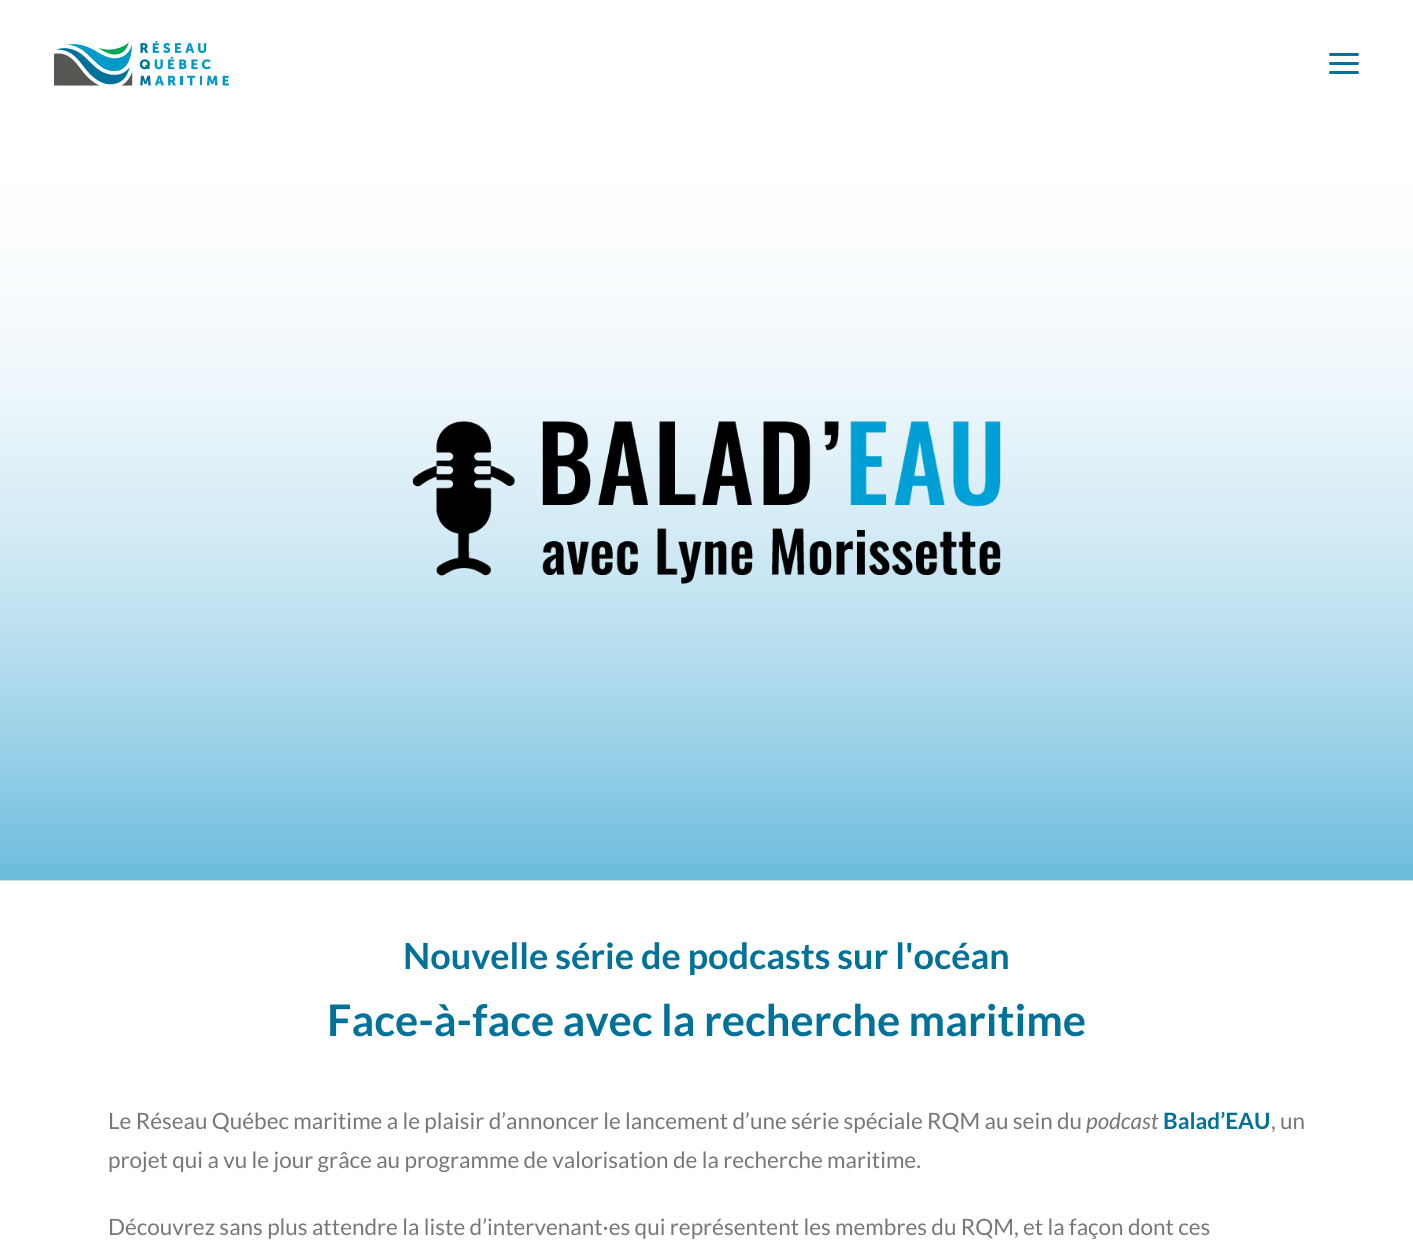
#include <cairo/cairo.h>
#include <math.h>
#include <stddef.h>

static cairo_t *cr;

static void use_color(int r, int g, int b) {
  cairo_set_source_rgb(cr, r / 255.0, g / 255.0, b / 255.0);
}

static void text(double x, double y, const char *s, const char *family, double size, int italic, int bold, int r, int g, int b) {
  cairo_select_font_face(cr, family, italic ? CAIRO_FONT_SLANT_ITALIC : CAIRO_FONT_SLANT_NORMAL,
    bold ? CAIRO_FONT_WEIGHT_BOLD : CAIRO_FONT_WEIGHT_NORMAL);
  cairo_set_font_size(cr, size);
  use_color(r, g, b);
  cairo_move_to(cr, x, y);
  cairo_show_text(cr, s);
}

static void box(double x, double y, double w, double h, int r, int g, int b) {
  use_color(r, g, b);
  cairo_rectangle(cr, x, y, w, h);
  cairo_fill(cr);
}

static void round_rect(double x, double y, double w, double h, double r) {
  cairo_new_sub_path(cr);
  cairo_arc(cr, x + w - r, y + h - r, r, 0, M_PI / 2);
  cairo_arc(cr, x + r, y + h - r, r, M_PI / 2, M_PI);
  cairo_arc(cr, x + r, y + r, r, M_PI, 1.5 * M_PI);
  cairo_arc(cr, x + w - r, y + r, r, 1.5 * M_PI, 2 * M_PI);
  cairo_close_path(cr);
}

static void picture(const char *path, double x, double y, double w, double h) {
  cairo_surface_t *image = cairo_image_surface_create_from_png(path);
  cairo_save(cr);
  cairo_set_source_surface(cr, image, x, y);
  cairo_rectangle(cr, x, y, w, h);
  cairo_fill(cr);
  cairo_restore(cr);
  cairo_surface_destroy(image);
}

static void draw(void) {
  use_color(234, 234, 234);
  cairo_paint(cr);
  box(0, 0, 1413, 126, 255, 255, 255);
  picture("img_01.png", 54, 41, 175, 45);
  use_color(0, 113, 153);
  round_rect(1329, 62, 30, 3, 1.5);
  cairo_fill(cr);
  round_rect(1329, 53, 30, 3, 1.5);
  cairo_fill(cr);
  round_rect(1329, 71, 30, 3, 1.5);
  cairo_fill(cr);
  picture("img_02.png", 0, 126, 1413, 755);
  box(0, 881, 1413, 379, 255, 255, 255);
  text(403, 969, "Nouvelle série de podcasts sur l'océan", "Lato", 36, 0, 1, 0, 113, 153);
  text(327, 1036, "Face-à-face avec la recherche maritime", "Lato", 43.5, 0, 1, 0, 113, 153);
  text(108, 1129, "Le Réseau Québec maritime a le plaisir d’annoncer le lancement d’une série spéciale RQM au sein du", "Lato", 22.5, 0, 0, 119, 119, 119);
  text(1086, 1129, "podcast", "Lato", 22.5, 1, 0, 119, 119, 119);
  text(1163, 1129, "Balad’EAU", "Lato", 22.5, 0, 1, 0, 113, 153);
  text(1271, 1129, ", un", "Lato", 22.5, 0, 0, 119, 119, 119);
  text(108, 1168, "projet qui a vu le jour grâce au programme de valorisation de la recherche maritime.", "Lato", 22.5, 0, 0, 119, 119, 119);
  text(108, 1235, "Découvrez sans plus attendre la liste d’intervenant·es qui représentent les membres du RQM, et la façon dont ces", "Lato", 22.5, 0, 0, 119, 119, 119);
}

int main(void) {
  cairo_surface_t *surface = cairo_image_surface_create(CAIRO_FORMAT_RGB24, 1413, 1260);
  cr = cairo_create(surface);
  cairo_font_options_t *options = cairo_font_options_create();
  cairo_font_options_set_hint_metrics(options, CAIRO_HINT_METRICS_OFF);
  cairo_font_options_set_hint_style(options, CAIRO_HINT_STYLE_NONE);
  cairo_set_font_options(cr, options);
  cairo_set_miter_limit(cr, 4);
  draw();
  cairo_surface_write_to_png(surface, "out.png");
  cairo_font_options_destroy(options);
  cairo_destroy(cr);
  cairo_surface_destroy(surface);
  return 0;
}
